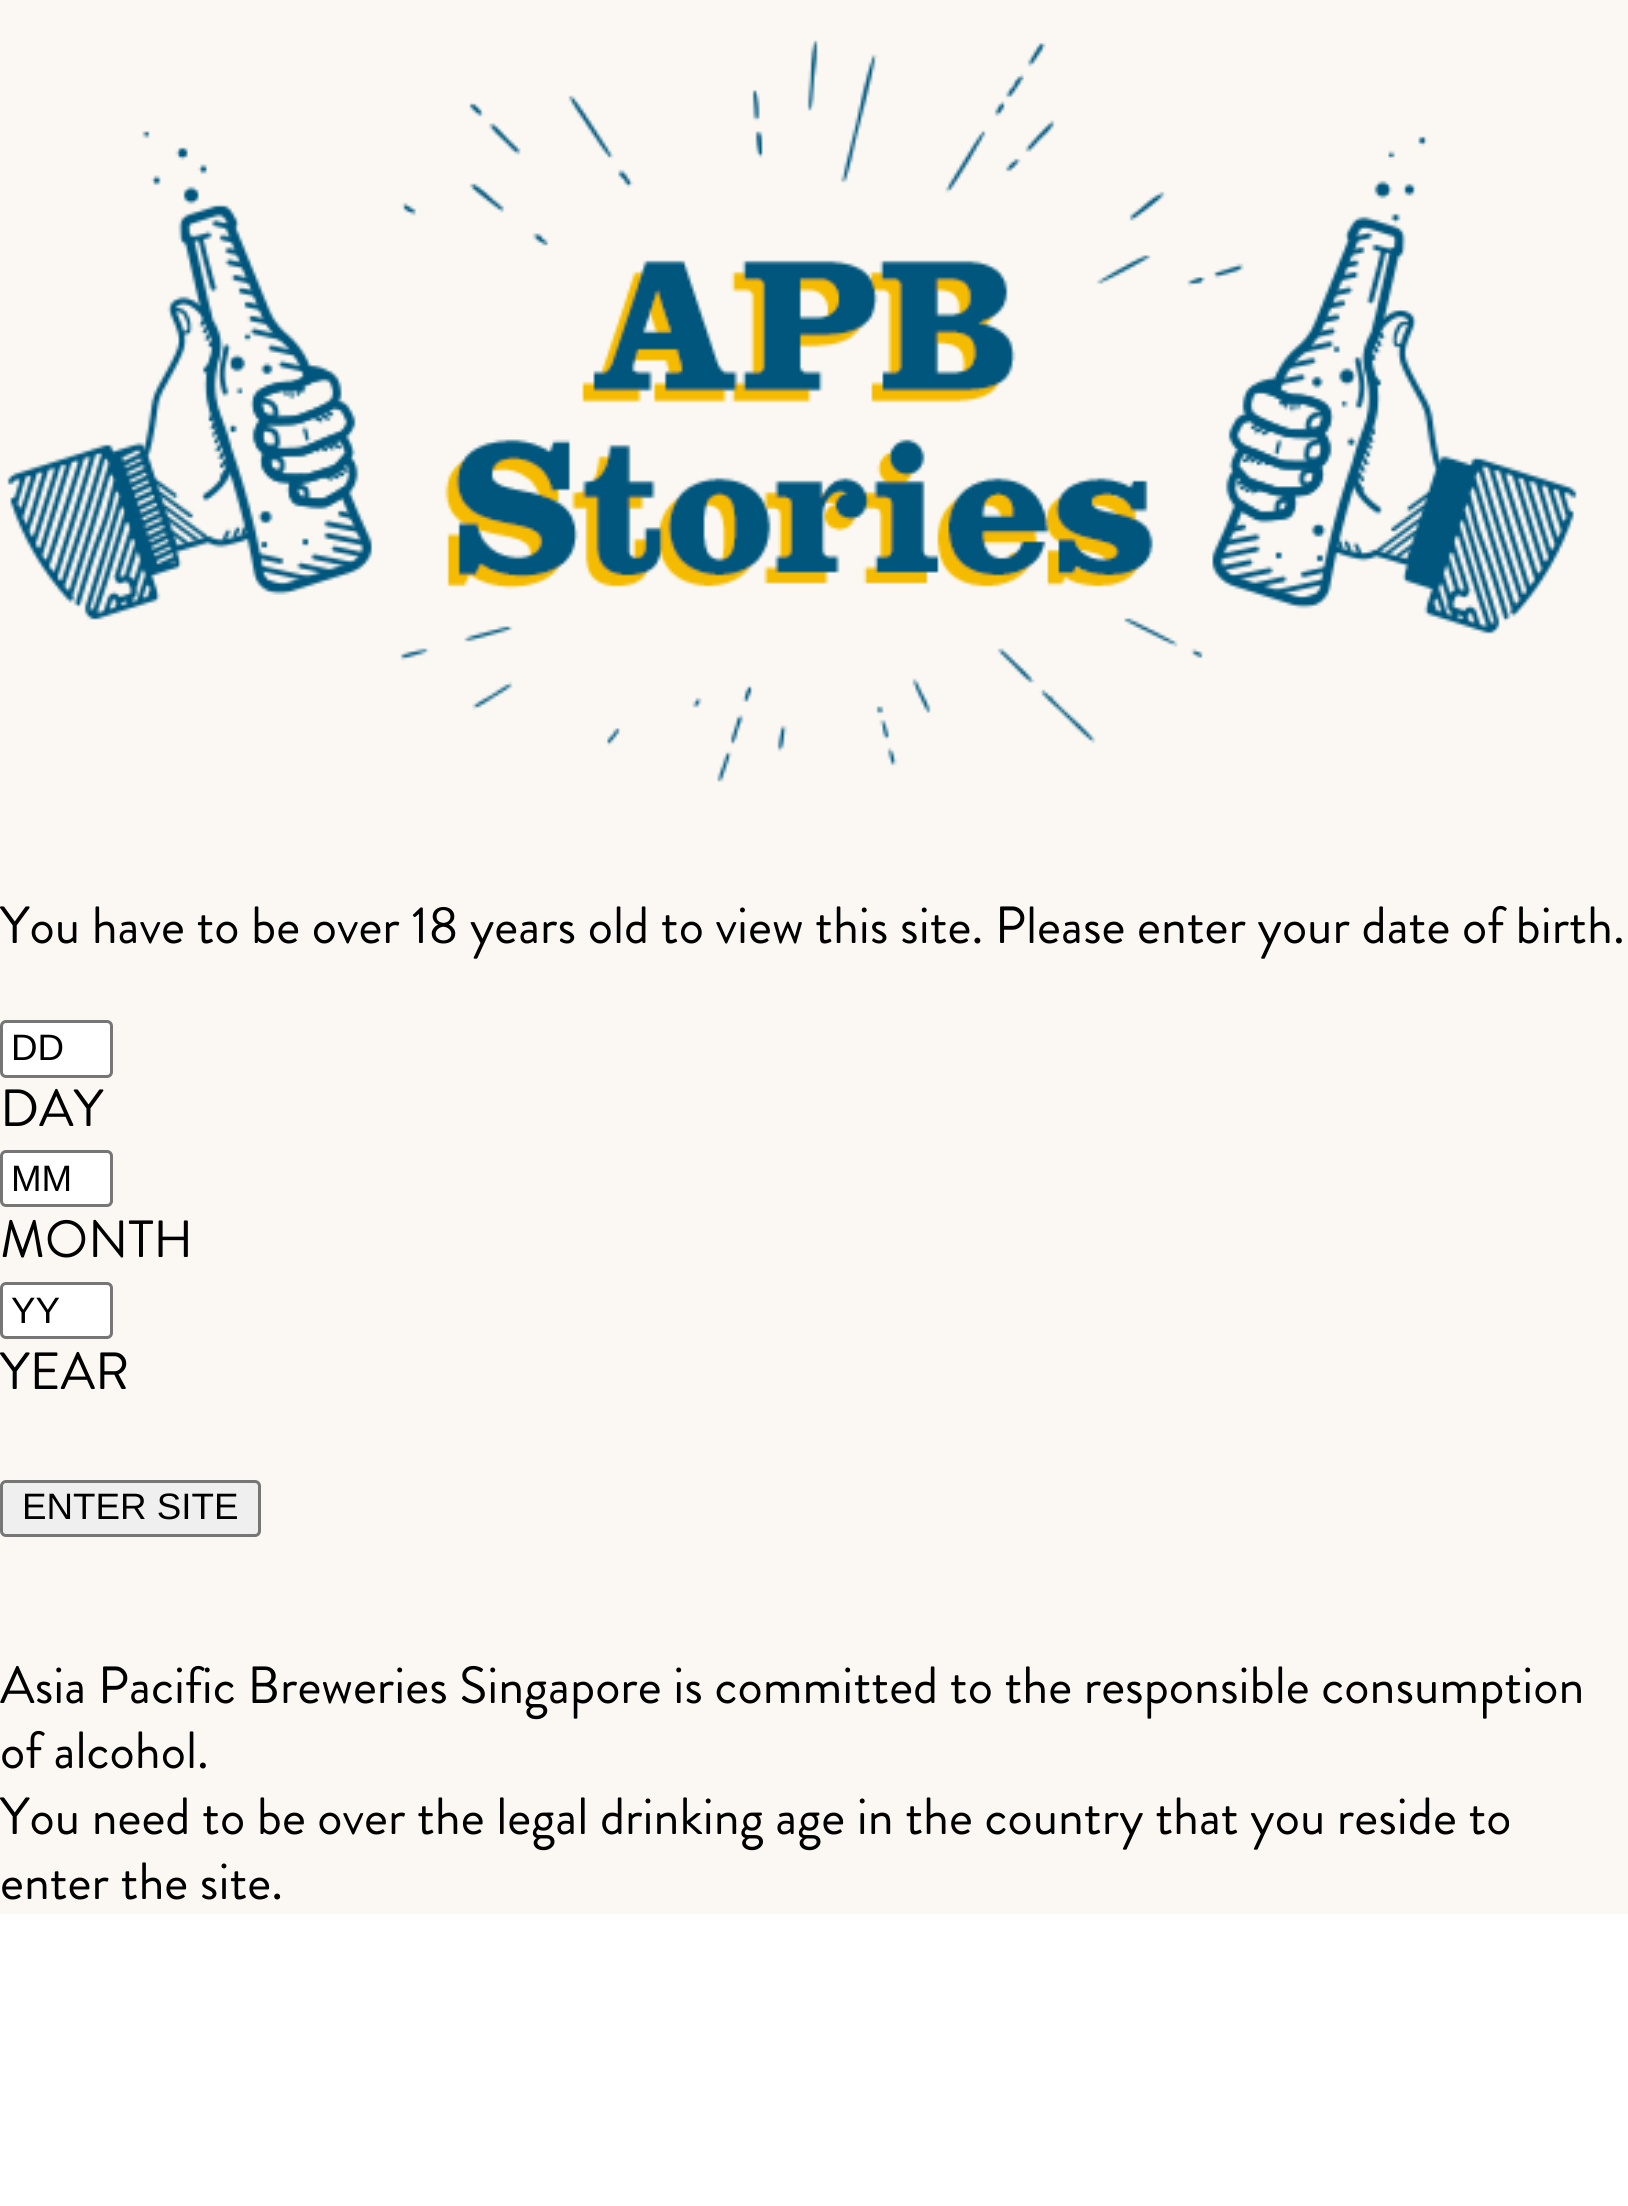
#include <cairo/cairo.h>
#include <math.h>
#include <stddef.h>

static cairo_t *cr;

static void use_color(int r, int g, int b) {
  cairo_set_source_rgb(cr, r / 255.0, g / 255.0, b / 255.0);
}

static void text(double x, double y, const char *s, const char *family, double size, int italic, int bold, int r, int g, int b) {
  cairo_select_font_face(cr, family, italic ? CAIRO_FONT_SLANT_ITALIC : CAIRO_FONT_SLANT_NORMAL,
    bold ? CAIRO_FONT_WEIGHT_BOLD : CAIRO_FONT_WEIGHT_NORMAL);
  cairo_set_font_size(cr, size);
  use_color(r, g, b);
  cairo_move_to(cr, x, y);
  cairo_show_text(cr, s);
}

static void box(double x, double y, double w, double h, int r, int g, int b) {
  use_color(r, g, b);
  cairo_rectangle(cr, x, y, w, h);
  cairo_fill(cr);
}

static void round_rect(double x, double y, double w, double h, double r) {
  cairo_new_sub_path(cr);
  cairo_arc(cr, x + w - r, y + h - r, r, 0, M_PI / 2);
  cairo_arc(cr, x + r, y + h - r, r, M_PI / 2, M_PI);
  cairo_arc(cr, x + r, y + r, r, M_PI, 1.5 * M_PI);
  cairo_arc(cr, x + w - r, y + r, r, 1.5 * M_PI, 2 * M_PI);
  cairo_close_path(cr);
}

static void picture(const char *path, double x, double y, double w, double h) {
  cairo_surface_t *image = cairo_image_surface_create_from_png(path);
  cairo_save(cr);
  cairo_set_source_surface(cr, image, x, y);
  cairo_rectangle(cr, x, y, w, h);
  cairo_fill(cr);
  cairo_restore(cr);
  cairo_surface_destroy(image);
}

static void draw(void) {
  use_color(255, 255, 255);
  cairo_paint(cr);
  box(0, 0, 1628, 1914, 251, 248, 243);
  picture("img_01.png", 7, 40, 1570, 742);
  use_color(255, 255, 255);
  round_rect(1.5, 1021.5, 110, 55, 4.5);
  cairo_fill_preserve(cr);
  use_color(118, 118, 118);
  cairo_set_line_width(cr, 3);
  cairo_stroke(cr);
  use_color(255, 255, 255);
  round_rect(1.5, 1151.5, 110, 54, 4.5);
  cairo_fill_preserve(cr);
  use_color(118, 118, 118);
  cairo_stroke(cr);
  use_color(255, 255, 255);
  round_rect(1.5, 1283.5, 110, 54, 4.5);
  cairo_fill_preserve(cr);
  use_color(118, 118, 118);
  cairo_stroke(cr);
  use_color(239, 239, 239);
  round_rect(1.5, 1481.5, 258, 54, 4.5);
  cairo_fill_preserve(cr);
  use_color(118, 118, 118);
  cairo_stroke(cr);
  text(0, 943, "You have to be over 18 years old to view this site. Please enter your date of birth.", "Brandon Grotesque", 52.25, 0, 0, 0, 0, 0);
  text(11, 1060, "DD", "Liberation Sans", 36.75, 0, 0, 0, 0, 0);
  text(0, 1126, "DAY", "Brandon Grotesque", 52.25, 0, 0, 0, 0, 0);
  text(11, 1191, "MM", "Liberation Sans", 36.75, 0, 0, 0, 0, 0);
  text(0, 1257, "MONTH", "Brandon Grotesque", 52.25, 0, 0, 0, 0, 0);
  text(11, 1323, "YY", "Liberation Sans", 36.75, 0, 0, 0, 0, 0);
  text(0, 1389, "YEAR", "Brandon Grotesque", 52.25, 0, 0, 0, 0, 0);
  text(22, 1519, "ENTER SITE", "Liberation Sans", 36.75, 0, 0, 0, 0, 0);
  text(0, 1703, "Asia Pacific Breweries Singapore is committed to the responsible consumption", "Brandon Grotesque", 52.25, 0, 0, 0, 0, 0);
  text(0, 1768, "of alcohol.", "Brandon Grotesque", 52.25, 0, 0, 0, 0, 0);
  text(0, 1834, "You need to be over the legal drinking age in the country that you reside to", "Brandon Grotesque", 52.25, 0, 0, 0, 0, 0);
  text(0, 1899, "enter the site.", "Brandon Grotesque", 52.25, 0, 0, 0, 0, 0);
}

int main(void) {
  cairo_surface_t *surface = cairo_image_surface_create(CAIRO_FORMAT_RGB24, 1628, 2206);
  cr = cairo_create(surface);
  cairo_font_options_t *options = cairo_font_options_create();
  cairo_font_options_set_hint_metrics(options, CAIRO_HINT_METRICS_OFF);
  cairo_font_options_set_hint_style(options, CAIRO_HINT_STYLE_NONE);
  cairo_set_font_options(cr, options);
  cairo_set_miter_limit(cr, 4);
  draw();
  cairo_surface_write_to_png(surface, "out.png");
  cairo_font_options_destroy(options);
  cairo_destroy(cr);
  cairo_surface_destroy(surface);
  return 0;
}
